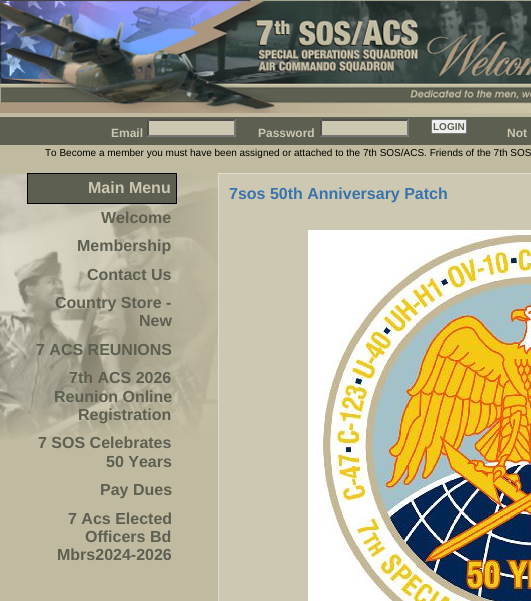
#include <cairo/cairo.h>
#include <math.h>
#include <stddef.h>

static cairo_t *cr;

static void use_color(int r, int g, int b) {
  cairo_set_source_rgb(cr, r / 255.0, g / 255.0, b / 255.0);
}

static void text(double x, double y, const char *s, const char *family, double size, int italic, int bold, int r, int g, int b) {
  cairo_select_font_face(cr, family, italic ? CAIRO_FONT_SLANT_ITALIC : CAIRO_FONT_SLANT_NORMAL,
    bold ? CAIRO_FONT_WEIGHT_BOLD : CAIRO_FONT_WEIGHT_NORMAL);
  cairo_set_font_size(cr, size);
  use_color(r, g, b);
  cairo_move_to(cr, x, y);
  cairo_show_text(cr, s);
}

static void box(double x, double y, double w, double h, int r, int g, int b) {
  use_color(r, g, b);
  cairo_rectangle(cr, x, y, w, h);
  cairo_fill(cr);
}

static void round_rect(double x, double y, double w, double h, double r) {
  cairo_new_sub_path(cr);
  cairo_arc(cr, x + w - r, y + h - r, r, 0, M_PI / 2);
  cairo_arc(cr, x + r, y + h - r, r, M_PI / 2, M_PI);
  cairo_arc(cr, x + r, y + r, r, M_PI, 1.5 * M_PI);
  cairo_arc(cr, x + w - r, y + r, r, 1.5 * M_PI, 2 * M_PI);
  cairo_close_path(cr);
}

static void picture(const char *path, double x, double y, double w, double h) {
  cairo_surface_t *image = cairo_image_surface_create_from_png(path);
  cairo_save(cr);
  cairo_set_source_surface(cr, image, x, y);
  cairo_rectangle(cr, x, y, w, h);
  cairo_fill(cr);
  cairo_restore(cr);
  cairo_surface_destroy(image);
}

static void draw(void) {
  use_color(192, 186, 160);
  cairo_paint(cr);
  picture("img_01.png", 0, 0, 531, 113);
  box(0, 117, 531, 28, 93, 95, 81);
  box(147, 119, 89, 18, 204, 199, 177);
  use_color(79, 79, 79);
  cairo_new_path(cr);
  cairo_move_to(cr, 147, 119);
  cairo_line_to(cr, 236, 119);
  cairo_line_to(cr, 234, 121);
  cairo_line_to(cr, 149, 121);
  cairo_close_path(cr);
  cairo_fill(cr);
  use_color(118, 118, 118);
  cairo_new_path(cr);
  cairo_move_to(cr, 236, 119);
  cairo_line_to(cr, 236, 137);
  cairo_line_to(cr, 234, 135);
  cairo_line_to(cr, 234, 121);
  cairo_close_path(cr);
  cairo_fill(cr);
  cairo_new_path(cr);
  cairo_move_to(cr, 236, 137);
  cairo_line_to(cr, 147, 137);
  cairo_line_to(cr, 149, 135);
  cairo_line_to(cr, 234, 135);
  cairo_close_path(cr);
  cairo_fill(cr);
  use_color(79, 79, 79);
  cairo_new_path(cr);
  cairo_move_to(cr, 147, 137);
  cairo_line_to(cr, 147, 119);
  cairo_line_to(cr, 149, 121);
  cairo_line_to(cr, 149, 135);
  cairo_close_path(cr);
  cairo_fill(cr);
  box(320, 119, 89, 18, 204, 199, 177);
  use_color(79, 79, 79);
  cairo_new_path(cr);
  cairo_move_to(cr, 320, 119);
  cairo_line_to(cr, 409, 119);
  cairo_line_to(cr, 407, 121);
  cairo_line_to(cr, 322, 121);
  cairo_close_path(cr);
  cairo_fill(cr);
  use_color(118, 118, 118);
  cairo_new_path(cr);
  cairo_move_to(cr, 409, 119);
  cairo_line_to(cr, 409, 137);
  cairo_line_to(cr, 407, 135);
  cairo_line_to(cr, 407, 121);
  cairo_close_path(cr);
  cairo_fill(cr);
  cairo_new_path(cr);
  cairo_move_to(cr, 409, 137);
  cairo_line_to(cr, 320, 137);
  cairo_line_to(cr, 322, 135);
  cairo_line_to(cr, 407, 135);
  cairo_close_path(cr);
  cairo_fill(cr);
  use_color(79, 79, 79);
  cairo_new_path(cr);
  cairo_move_to(cr, 320, 137);
  cairo_line_to(cr, 320, 119);
  cairo_line_to(cr, 322, 121);
  cairo_line_to(cr, 322, 135);
  cairo_close_path(cr);
  cairo_fill(cr);
  use_color(239, 239, 239);
  round_rect(431.5, 119.5, 35, 14, 1.5);
  cairo_fill_preserve(cr);
  use_color(118, 118, 118);
  cairo_set_line_width(cr, 1);
  cairo_stroke(cr);
  picture("img_02.png", 0, 173, 218, 266);
  use_color(93, 95, 81);
  cairo_rectangle(cr, 27.5, 173.5, 149, 30);
  cairo_fill_preserve(cr);
  use_color(0, 0, 0);
  cairo_stroke(cr);
  use_color(205, 200, 178);
  cairo_rectangle(cr, 218.5, 173.5, 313, 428);
  cairo_fill_preserve(cr);
  use_color(223, 220, 206);
  cairo_stroke(cr);
  picture("img_03.png", 308, 230, 223, 371);
  text(433, 130, "LOGIN", "Liberation Sans", 10, 0, 1, 93, 95, 81);
  text(111, 137, "Email", "Liberation Sans", 12, 0, 1, 204, 199, 177);
  text(258, 137, "Password", "Liberation Sans", 12, 0, 1, 204, 199, 177);
  text(507, 137, "Not", "Liberation Sans", 12, 0, 1, 204, 199, 177);
  text(45, 156, "To Become a member you must have been assigned or attached to the 7th SOS/ACS. Friends of the 7th SOS", "Liberation Sans", 10, 0, 0, 0, 0, 0);
  text(88, 193, "Main Menu", "Liberation Sans", 16, 0, 1, 204, 199, 177);
  text(101, 223, "Welcome", "Liberation Sans", 16, 0, 1, 93, 95, 81);
  text(77, 251, "Membership", "Liberation Sans", 16, 0, 1, 93, 95, 81);
  text(87, 280, "Contact Us", "Liberation Sans", 16, 0, 1, 93, 95, 81);
  text(55, 308, "Country Store -", "Liberation Sans", 16, 0, 1, 93, 95, 81);
  text(139, 326, "New", "Liberation Sans", 16, 0, 1, 93, 95, 81);
  text(36, 355, "7 ACS REUNIONS", "Liberation Sans", 16, 0, 1, 93, 95, 81);
  text(69, 383, "7th ACS 2026", "Liberation Sans", 16, 0, 1, 93, 95, 81);
  text(54, 402, "Reunion Online", "Liberation Sans", 16, 0, 1, 93, 95, 81);
  text(78, 420, "Registration", "Liberation Sans", 16, 0, 1, 93, 95, 81);
  text(38, 448, "7 SOS Celebrates", "Liberation Sans", 16, 0, 1, 93, 95, 81);
  text(106, 467, "50 Years", "Liberation Sans", 16, 0, 1, 93, 95, 81);
  text(100, 495, "Pay Dues", "Liberation Sans", 16, 0, 1, 93, 95, 81);
  text(68, 524, "7 Acs Elected", "Liberation Sans", 16, 0, 1, 93, 95, 81);
  text(85, 542, "Officers Bd", "Liberation Sans", 16, 0, 1, 93, 95, 81);
  text(57, 560, "Mbrs2024-2026", "Liberation Sans", 16, 0, 1, 93, 95, 81);
  text(229, 199, "7sos 50th Anniversary Patch", "Liberation Sans", 16, 0, 1, 57, 115, 172);
}

int main(void) {
  cairo_surface_t *surface = cairo_image_surface_create(CAIRO_FORMAT_RGB24, 531, 601);
  cr = cairo_create(surface);
  cairo_font_options_t *options = cairo_font_options_create();
  cairo_font_options_set_hint_metrics(options, CAIRO_HINT_METRICS_OFF);
  cairo_font_options_set_hint_style(options, CAIRO_HINT_STYLE_NONE);
  cairo_set_font_options(cr, options);
  cairo_set_miter_limit(cr, 4);
  draw();
  cairo_surface_write_to_png(surface, "out.png");
  cairo_font_options_destroy(options);
  cairo_destroy(cr);
  cairo_surface_destroy(surface);
  return 0;
}
